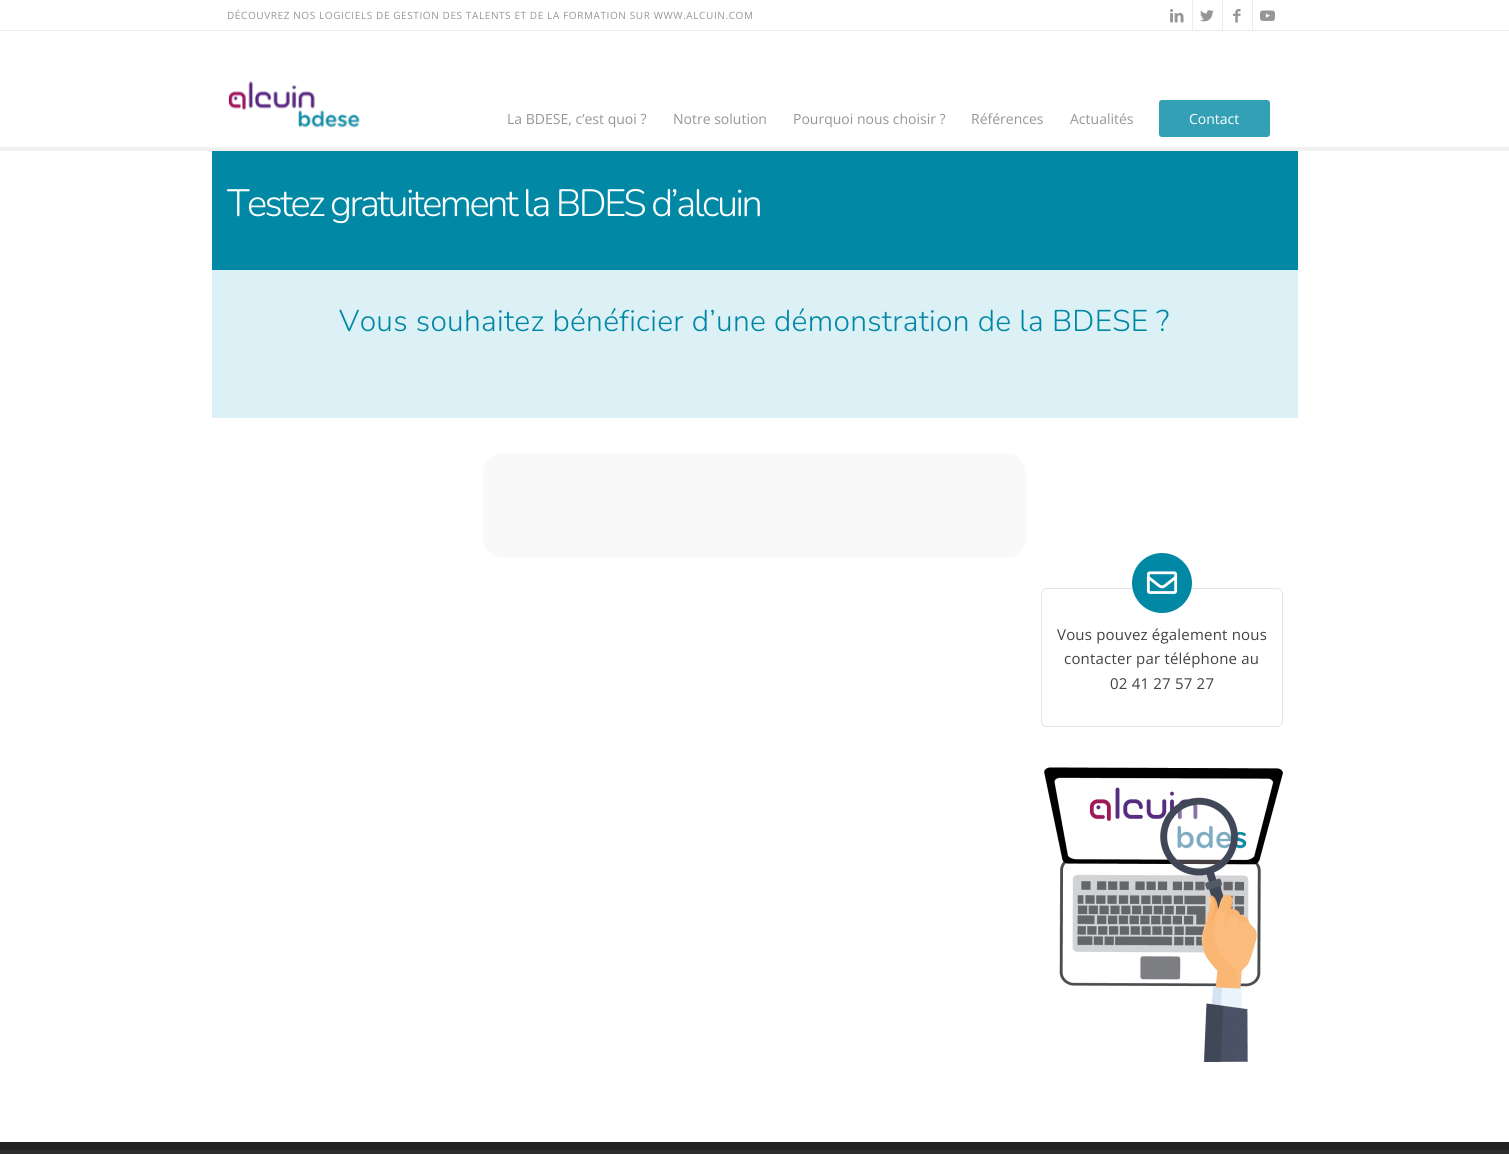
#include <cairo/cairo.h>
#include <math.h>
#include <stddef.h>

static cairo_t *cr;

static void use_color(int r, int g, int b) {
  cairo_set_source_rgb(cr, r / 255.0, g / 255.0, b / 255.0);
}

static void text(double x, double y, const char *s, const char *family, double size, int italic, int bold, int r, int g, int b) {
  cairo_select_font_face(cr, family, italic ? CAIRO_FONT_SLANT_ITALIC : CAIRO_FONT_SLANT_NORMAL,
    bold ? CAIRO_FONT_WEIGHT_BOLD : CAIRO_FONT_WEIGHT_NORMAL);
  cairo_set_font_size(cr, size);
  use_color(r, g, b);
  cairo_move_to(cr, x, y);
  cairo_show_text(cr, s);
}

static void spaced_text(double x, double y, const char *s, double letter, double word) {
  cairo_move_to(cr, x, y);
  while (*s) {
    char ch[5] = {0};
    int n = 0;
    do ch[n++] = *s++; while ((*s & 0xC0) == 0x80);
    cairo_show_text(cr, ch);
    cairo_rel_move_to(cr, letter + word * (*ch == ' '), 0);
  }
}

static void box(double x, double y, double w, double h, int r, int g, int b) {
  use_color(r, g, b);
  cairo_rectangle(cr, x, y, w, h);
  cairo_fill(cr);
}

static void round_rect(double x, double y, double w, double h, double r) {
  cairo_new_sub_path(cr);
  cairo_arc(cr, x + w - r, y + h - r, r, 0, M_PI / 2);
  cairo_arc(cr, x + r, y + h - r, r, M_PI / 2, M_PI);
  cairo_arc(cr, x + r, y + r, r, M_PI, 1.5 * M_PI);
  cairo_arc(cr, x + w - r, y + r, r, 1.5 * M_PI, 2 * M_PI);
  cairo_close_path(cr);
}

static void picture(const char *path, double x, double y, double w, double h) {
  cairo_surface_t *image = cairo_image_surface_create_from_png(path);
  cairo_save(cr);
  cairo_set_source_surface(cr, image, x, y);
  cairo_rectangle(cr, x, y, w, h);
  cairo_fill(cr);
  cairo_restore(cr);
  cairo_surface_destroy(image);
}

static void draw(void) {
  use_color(255, 255, 255);
  cairo_paint(cr);
  box(0, 30, 1509, 1, 235, 235, 235);
  box(1192, 0, 1, 30, 235, 235, 235);
  picture("img_01.png", 1170, 9, 14, 14);
  box(1222, 0, 1, 30, 235, 235, 235);
  picture("img_02.png", 1200, 10, 14, 12);
  box(1252, 0, 1, 30, 235, 235, 235);
  picture("img_03.png", 1233, 9, 8, 14);
  picture("img_04.png", 1260, 10, 15, 11);
  box(0, 147, 1509, 4, 240, 240, 240);
  picture("img_05.png", 228, 81, 132, 47);
  use_color(51, 160, 182);
  round_rect(1160, 101, 109, 35, 2);
  cairo_fill_preserve(cr);
  cairo_stroke(cr);
  box(212, 151, 1086, 119, 0, 136, 165);
  box(212, 270, 1086, 148, 219, 241, 245);
  use_color(249, 249, 249);
  round_rect(483, 453, 543, 105, 20);
  cairo_fill(cr);
  round_rect(1041.5, 588.5, 241, 138, 5.5);
  use_color(229, 229, 229);
  cairo_set_line_width(cr, 1);
  cairo_stroke(cr);
  use_color(0, 136, 165);
  cairo_arc(cr, 1162, 583, 30, 0, 2 * M_PI);
  cairo_fill(cr);
  picture("img_06.png", 1146, 571, 32, 23);
  picture("img_07.png", 1044, 767, 239, 295);
  box(0, 1150, 1509, 4, 45, 45, 45);
  box(0, 1142, 1509, 8, 34, 34, 34);
  cairo_select_font_face(cr, "Open Sans", CAIRO_FONT_SLANT_NORMAL, CAIRO_FONT_WEIGHT_NORMAL);
  cairo_set_font_size(cr, 10);
  use_color(150, 150, 150);
  spaced_text(227, 19, "DÉCOUVREZ NOS LOGICIELS DE GESTION DES TALENTS ET DE LA FORMATION SUR WWW.ALCUIN.COM", 0.6, 0);
  text(507, 124, "La BDESE, c’est quoi ?", "Open Sans", 14, 0, 0, 150, 150, 150);
  text(673, 124, "Notre solution", "Open Sans", 14, 0, 0, 150, 150, 150);
  text(793, 124, "Pourquoi nous choisir ?", "Open Sans", 14, 0, 0, 150, 150, 150);
  text(971, 124, "Références", "Open Sans", 14, 0, 0, 150, 150, 150);
  text(1070, 124, "Actualités", "Open Sans", 14, 0, 0, 150, 150, 150);
  text(1189, 124, "Contact", "Open Sans", 14, 0, 0, 255, 255, 255);
  cairo_select_font_face(cr, "Nunito Light", CAIRO_FONT_SLANT_NORMAL, CAIRO_FONT_WEIGHT_NORMAL);
  cairo_set_font_size(cr, 38);
  spaced_text(227, 216, "Testez gratuitement la BDES d’alcuin", -2.5, 0);
  cairo_set_font_size(cr, 30);
  use_color(0, 135, 165);
  spaced_text(339, 331, "Vous souhaitez bénéficier d’une démonstration de la BDESE ?", 0.3, 0);
  cairo_select_font_face(cr, "Open Sans", CAIRO_FONT_SLANT_NORMAL, CAIRO_FONT_WEIGHT_NORMAL);
  cairo_set_font_size(cr, 15);
  use_color(66, 66, 66);
  spaced_text(1057, 640, "Vous pouvez également nous", 0.2, 0);
  spaced_text(1064, 664, "contacter par téléphone au", 0.2, 0);
  spaced_text(1110, 689, "02 41 27 57 27", 0.2, 0);
}

int main(void) {
  cairo_surface_t *surface = cairo_image_surface_create(CAIRO_FORMAT_RGB24, 1509, 1154);
  cr = cairo_create(surface);
  cairo_font_options_t *options = cairo_font_options_create();
  cairo_font_options_set_hint_metrics(options, CAIRO_HINT_METRICS_OFF);
  cairo_font_options_set_hint_style(options, CAIRO_HINT_STYLE_NONE);
  cairo_set_font_options(cr, options);
  cairo_set_miter_limit(cr, 4);
  draw();
  cairo_surface_write_to_png(surface, "out.png");
  cairo_font_options_destroy(options);
  cairo_destroy(cr);
  cairo_surface_destroy(surface);
  return 0;
}
